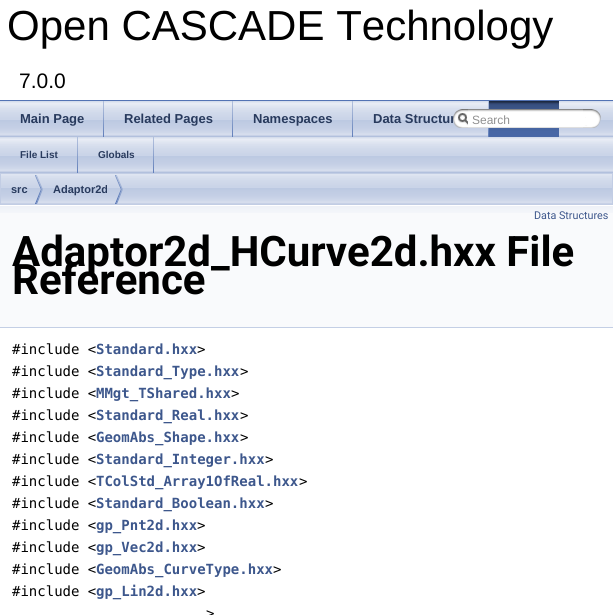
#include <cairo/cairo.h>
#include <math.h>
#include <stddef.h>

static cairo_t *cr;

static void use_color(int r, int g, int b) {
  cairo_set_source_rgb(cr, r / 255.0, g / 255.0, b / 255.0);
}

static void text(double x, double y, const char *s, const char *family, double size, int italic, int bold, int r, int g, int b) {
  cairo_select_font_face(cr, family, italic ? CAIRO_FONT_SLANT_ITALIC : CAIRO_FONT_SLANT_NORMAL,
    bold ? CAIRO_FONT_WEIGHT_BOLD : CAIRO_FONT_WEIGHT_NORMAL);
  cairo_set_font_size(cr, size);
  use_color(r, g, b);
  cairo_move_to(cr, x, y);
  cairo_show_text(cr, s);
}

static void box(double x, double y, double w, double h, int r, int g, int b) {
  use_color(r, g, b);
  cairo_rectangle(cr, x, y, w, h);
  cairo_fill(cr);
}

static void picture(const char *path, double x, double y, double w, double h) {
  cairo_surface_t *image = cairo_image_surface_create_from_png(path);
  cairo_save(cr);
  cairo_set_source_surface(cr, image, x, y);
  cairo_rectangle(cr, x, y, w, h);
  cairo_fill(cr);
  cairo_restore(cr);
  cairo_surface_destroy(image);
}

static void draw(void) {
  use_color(255, 255, 255);
  cairo_paint(cr);
  box(0, 100, 613, 1, 83, 115, 180);
  picture("img_01.png", 0, 101, 613, 36);
  picture("img_02.png", 103, 101, 1, 36);
  picture("img_02.png", 232, 101, 1, 36);
  picture("img_02.png", 352, 101, 1, 36);
  picture("img_02.png", 488, 101, 1, 36);
  picture("img_03.png", 489, 101, 70, 36);
  picture("img_06.png", 468, 109, 115, 19);
  picture("img_07.png", 583, 109, 18, 19);
  picture("img_01.png", 0, 137, 613, 36);
  picture("img_02.png", 77, 137, 1, 36);
  picture("img_02.png", 153, 137, 1, 36);
  picture("img_08.png", 1, 174, 611, 30);
  cairo_rectangle(cr, 0.5, 173.5, 612, 31);
  use_color(194, 205, 228);
  cairo_set_line_width(cr, 1);
  cairo_stroke(cr);
  picture("img_09.png", 35, 175, 8, 29);
  picture("img_09.png", 115, 175, 8, 29);
  box(0, 213, 613, 114, 249, 250, 252);
  picture("img_10.png", 0, 205, 613, 8);
  box(0, 327, 613, 1, 196, 207, 229);
  text(7, 40, "Open CASCADE Technology", "Liberation Sans", 42, 0, 0, 0, 0, 0);
  text(19, 88, "7.0.0", "Liberation Sans", 21, 0, 0, 0, 0, 0);
  text(20, 123, "Main Page", "Liberation Sans", 13, 0, 1, 40, 58, 93);
  text(124, 123, "Related Pages", "Liberation Sans", 13, 0, 1, 40, 58, 93);
  text(253, 123, "Namespaces", "Liberation Sans", 13, 0, 1, 40, 58, 93);
  text(373, 123, "Data Structur", "Liberation Sans", 13, 0, 1, 40, 58, 93);
  picture("img_04.png", 453, 109, 15, 19);
  picture("img_05.png", 458, 113, 10, 12);
  text(472, 124, "Search", "Liberation Sans", 12, 0, 0, 144, 144, 144);
  text(20, 158, "File List", "Liberation Sans", 10, 0, 1, 40, 58, 93);
  text(98, 158, "Globals", "Liberation Sans", 10, 0, 1, 40, 58, 93);
  text(11, 193, "src", "Liberation Sans", 11, 0, 1, 40, 58, 93);
  text(53, 193, "Adaptor2d", "Liberation Sans", 11, 0, 1, 40, 58, 93);
  text(534, 219, "Data Structures", "Roboto", 10.75, 0, 0, 61, 87, 140);
  text(12, 266, "Adaptor2d_HCurve2d.hxx File", "Roboto", 42, 0, 1, 0, 0, 0);
  text(12, 294, "Reference", "Roboto", 42, 0, 1, 0, 0, 0);
  text(12, 354, "#include <", "DejaVu Sans Mono", 14, 0, 0, 0, 0, 0);
  text(96, 354, "Standard.hxx", "DejaVu Sans Mono", 14, 0, 1, 61, 87, 140);
  text(197, 354, ">", "DejaVu Sans Mono", 14, 0, 0, 0, 0, 0);
  text(12, 376, "#include <", "DejaVu Sans Mono", 14, 0, 0, 0, 0, 0);
  text(96, 376, "Standard_Type.hxx", "DejaVu Sans Mono", 14, 0, 1, 61, 87, 140);
  text(240, 376, ">", "DejaVu Sans Mono", 14, 0, 0, 0, 0, 0);
  text(12, 398, "#include <", "DejaVu Sans Mono", 14, 0, 0, 0, 0, 0);
  text(96, 398, "MMgt_TShared.hxx", "DejaVu Sans Mono", 14, 0, 1, 61, 87, 140);
  text(231, 398, ">", "DejaVu Sans Mono", 14, 0, 0, 0, 0, 0);
  text(12, 420, "#include <", "DejaVu Sans Mono", 14, 0, 0, 0, 0, 0);
  text(96, 420, "Standard_Real.hxx", "DejaVu Sans Mono", 14, 0, 1, 61, 87, 140);
  text(240, 420, ">", "DejaVu Sans Mono", 14, 0, 0, 0, 0, 0);
  text(12, 442, "#include <", "DejaVu Sans Mono", 14, 0, 0, 0, 0, 0);
  text(96, 442, "GeomAbs_Shape.hxx", "DejaVu Sans Mono", 14, 0, 1, 61, 87, 140);
  text(240, 442, ">", "DejaVu Sans Mono", 14, 0, 0, 0, 0, 0);
  text(12, 464, "#include <", "DejaVu Sans Mono", 14, 0, 0, 0, 0, 0);
  text(96, 464, "Standard_Integer.hxx", "DejaVu Sans Mono", 14, 0, 1, 61, 87, 140);
  text(265, 464, ">", "DejaVu Sans Mono", 14, 0, 0, 0, 0, 0);
  text(12, 486, "#include <", "DejaVu Sans Mono", 14, 0, 0, 0, 0, 0);
  text(96, 486, "TColStd_Array1OfReal.hxx", "DejaVu Sans Mono", 14, 0, 1, 61, 87, 140);
  text(299, 486, ">", "DejaVu Sans Mono", 14, 0, 0, 0, 0, 0);
  text(12, 508, "#include <", "DejaVu Sans Mono", 14, 0, 0, 0, 0, 0);
  text(96, 508, "Standard_Boolean.hxx", "DejaVu Sans Mono", 14, 0, 1, 61, 87, 140);
  text(265, 508, ">", "DejaVu Sans Mono", 14, 0, 0, 0, 0, 0);
  text(12, 530, "#include <", "DejaVu Sans Mono", 14, 0, 0, 0, 0, 0);
  text(96, 530, "gp_Pnt2d.hxx", "DejaVu Sans Mono", 14, 0, 1, 61, 87, 140);
  text(197, 530, ">", "DejaVu Sans Mono", 14, 0, 0, 0, 0, 0);
  text(12, 552, "#include <", "DejaVu Sans Mono", 14, 0, 0, 0, 0, 0);
  text(96, 552, "gp_Vec2d.hxx", "DejaVu Sans Mono", 14, 0, 1, 61, 87, 140);
  text(197, 552, ">", "DejaVu Sans Mono", 14, 0, 0, 0, 0, 0);
  text(12, 574, "#include <", "DejaVu Sans Mono", 14, 0, 0, 0, 0, 0);
  text(96, 574, "GeomAbs_CurveType.hxx", "DejaVu Sans Mono", 14, 0, 1, 61, 87, 140);
  text(273, 574, ">", "DejaVu Sans Mono", 14, 0, 0, 0, 0, 0);
  text(12, 596, "#include <", "DejaVu Sans Mono", 14, 0, 0, 0, 0, 0);
  text(96, 596, "gp_Lin2d.hxx", "DejaVu Sans Mono", 14, 0, 1, 61, 87, 140);
  text(197, 596, ">", "DejaVu Sans Mono", 14, 0, 0, 0, 0, 0);
  text(206, 618, ">", "DejaVu Sans Mono", 14, 0, 0, 0, 0, 0);
}

int main(void) {
  cairo_surface_t *surface = cairo_image_surface_create(CAIRO_FORMAT_RGB24, 613, 615);
  cr = cairo_create(surface);
  cairo_font_options_t *options = cairo_font_options_create();
  cairo_font_options_set_hint_metrics(options, CAIRO_HINT_METRICS_OFF);
  cairo_font_options_set_hint_style(options, CAIRO_HINT_STYLE_NONE);
  cairo_set_font_options(cr, options);
  cairo_set_miter_limit(cr, 4);
  draw();
  cairo_surface_write_to_png(surface, "out.png");
  cairo_font_options_destroy(options);
  cairo_destroy(cr);
  cairo_surface_destroy(surface);
  return 0;
}
